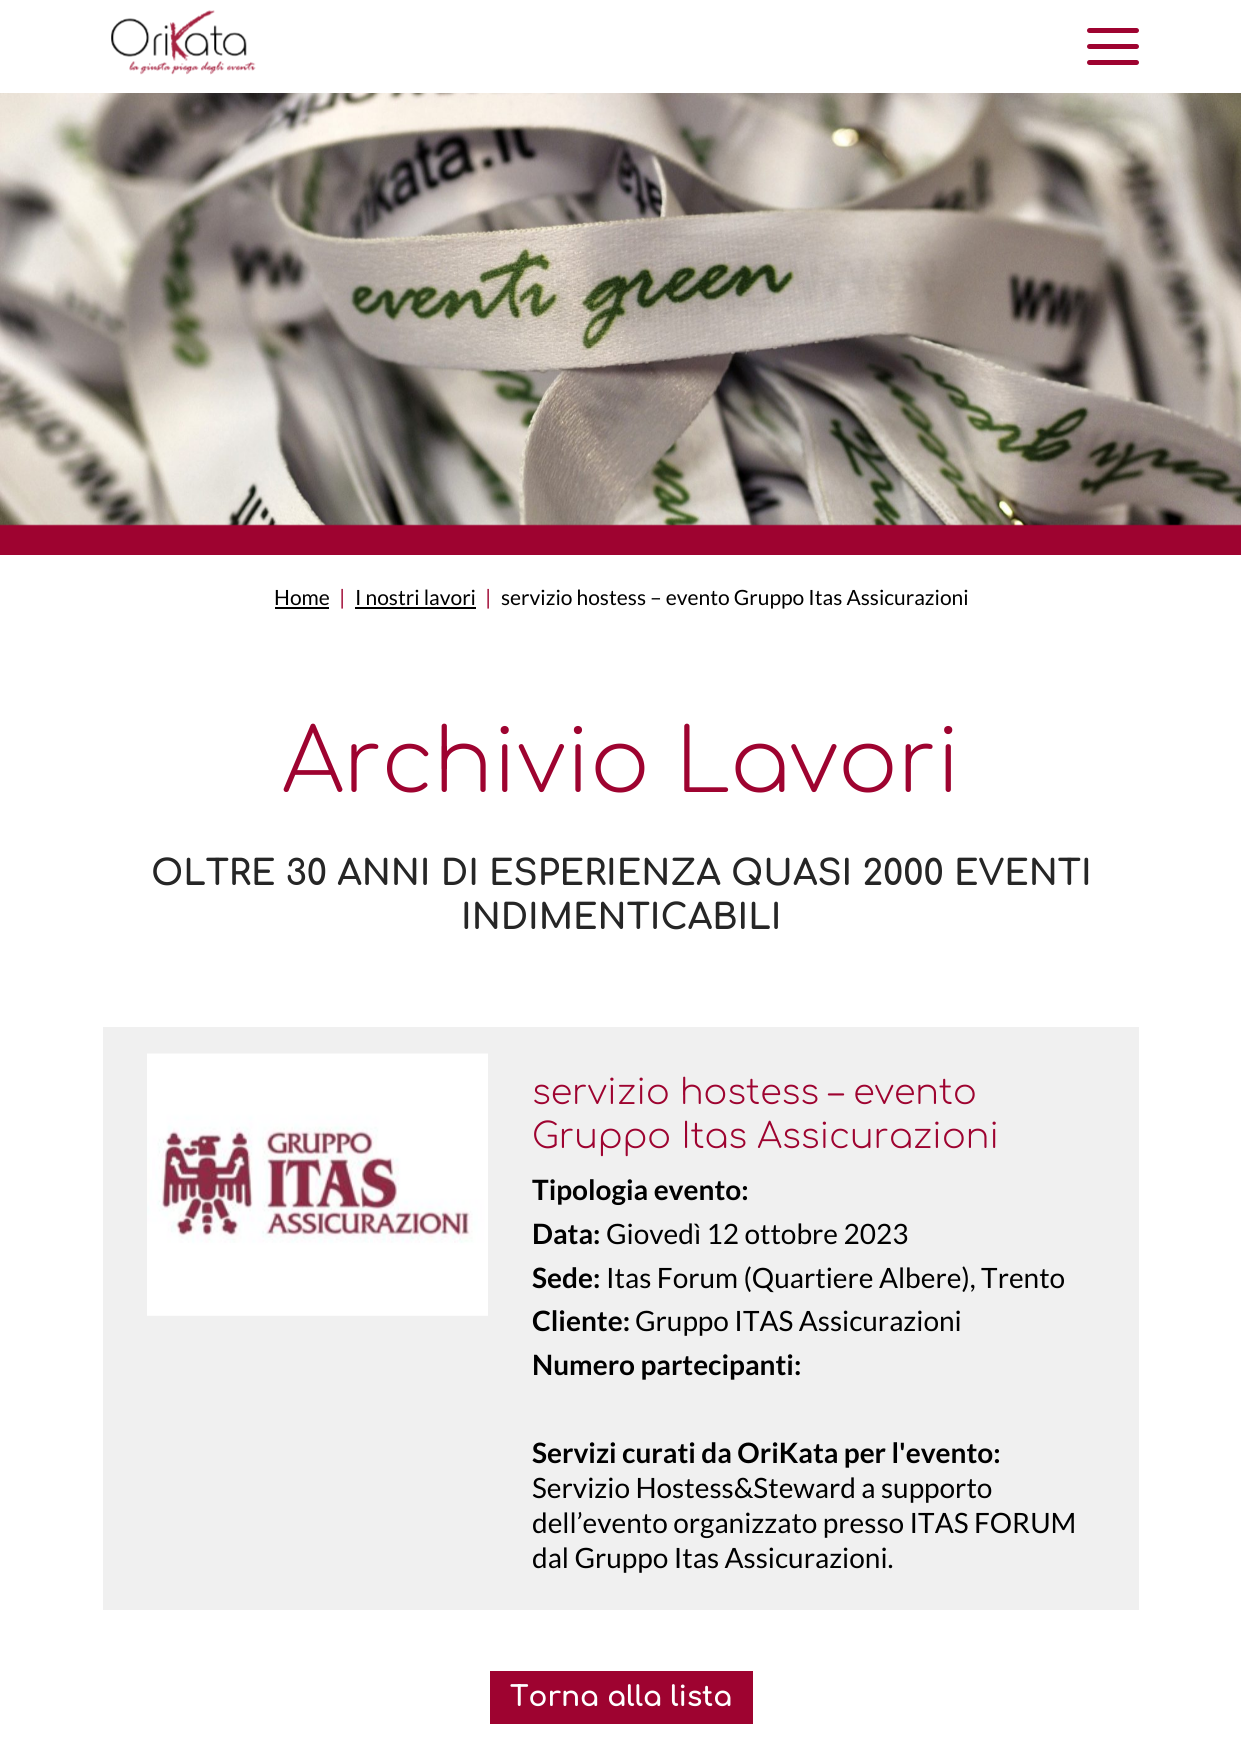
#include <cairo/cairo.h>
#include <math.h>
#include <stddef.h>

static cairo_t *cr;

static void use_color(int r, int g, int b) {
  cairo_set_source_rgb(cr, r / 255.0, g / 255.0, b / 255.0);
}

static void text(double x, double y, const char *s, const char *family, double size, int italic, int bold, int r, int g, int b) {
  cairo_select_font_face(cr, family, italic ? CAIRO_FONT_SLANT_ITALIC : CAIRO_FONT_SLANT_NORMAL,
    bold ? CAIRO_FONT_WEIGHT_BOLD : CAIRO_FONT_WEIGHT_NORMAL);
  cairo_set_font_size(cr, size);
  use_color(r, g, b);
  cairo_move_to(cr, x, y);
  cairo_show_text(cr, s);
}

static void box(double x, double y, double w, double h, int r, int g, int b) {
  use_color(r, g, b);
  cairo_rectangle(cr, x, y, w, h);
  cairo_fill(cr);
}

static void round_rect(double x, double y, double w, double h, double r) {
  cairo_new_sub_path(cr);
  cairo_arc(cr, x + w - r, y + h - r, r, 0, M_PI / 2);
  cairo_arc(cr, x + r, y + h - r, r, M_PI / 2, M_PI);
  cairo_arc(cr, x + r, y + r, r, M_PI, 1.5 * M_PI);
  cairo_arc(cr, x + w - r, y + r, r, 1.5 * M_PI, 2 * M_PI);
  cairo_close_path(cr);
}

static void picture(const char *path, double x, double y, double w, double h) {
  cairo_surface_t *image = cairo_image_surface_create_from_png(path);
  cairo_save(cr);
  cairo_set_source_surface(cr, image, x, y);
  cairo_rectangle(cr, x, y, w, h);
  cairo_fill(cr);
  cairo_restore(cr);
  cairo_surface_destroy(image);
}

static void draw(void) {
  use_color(255, 255, 255);
  cairo_paint(cr);
  picture("img_01.png", 111, 10, 145, 65);
  use_color(158, 3, 48);
  round_rect(1087, 28, 52, 5, 2.5);
  cairo_fill(cr);
  round_rect(1087, 44, 52, 5, 2.5);
  cairo_fill(cr);
  round_rect(1087, 60, 52, 5, 2.5);
  cairo_fill(cr);
  box(0, 524, 1241, 31, 158, 3, 48);
  picture("img_02.png", 0, 93, 1241, 433);
  box(275, 607, 54, 2, 0, 0, 0);
  box(355, 607, 121, 2, 0, 0, 0);
  box(103, 1027, 1036, 583, 240, 240, 240);
  picture("img_03.png", 147, 1053, 341, 263);
  box(490, 1671, 263, 53, 158, 3, 48);
  text(274, 605, "Home", "Lato", 21, 0, 0, 0, 0, 0);
  text(339, 605, "|", "Lato", 21, 0, 0, 158, 3, 48);
  text(355, 605, "I nostri lavori", "Lato", 21, 0, 0, 0, 0, 0);
  text(485, 605, "|", "Lato", 21, 0, 0, 158, 3, 48);
  text(501, 605, "servizio hostess – evento Gruppo Itas Assicurazioni", "Lato", 21, 0, 0, 0, 0, 0);
  text(282, 792, "Archivio Lavori", "Comfortaa Light", 87.5, 0, 0, 158, 3, 48);
  text(151, 885, "OLTRE 30 ANNI DI ESPERIENZA QUASI 2000 EVENTI", "Comfortaa", 35, 0, 1, 38, 38, 38);
  text(461, 929, "INDIMENTICABILI", "Comfortaa", 35, 0, 1, 38, 38, 38);
  text(532, 1104, "servizio hostess – evento", "Comfortaa Light", 35, 0, 0, 158, 3, 48);
  text(532, 1148, "Gruppo Itas Assicurazioni", "Comfortaa Light", 35, 0, 0, 158, 3, 48);
  text(532, 1200, "Tipologia evento:", "Lato", 28, 0, 1, 0, 0, 0);
  text(532, 1244, "Data:", "Lato", 28, 0, 1, 0, 0, 0);
  text(606, 1244, "Giovedì 12 ottobre 2023", "Lato", 28, 0, 0, 0, 0, 0);
  text(532, 1288, "Sede:", "Lato", 28, 0, 1, 0, 0, 0);
  text(606, 1288, "Itas Forum (Quartiere Albere), Trento", "Lato", 28, 0, 0, 0, 0, 0);
  text(532, 1331, "Cliente:", "Lato", 28, 0, 1, 0, 0, 0);
  text(635, 1331, "Gruppo ITAS Assicurazioni", "Lato", 28, 0, 0, 0, 0, 0);
  text(532, 1375, "Numero partecipanti:", "Lato", 28, 0, 1, 0, 0, 0);
  text(532, 1463, "Servizi curati da OriKata per l'evento:", "Lato", 28, 0, 1, 0, 0, 0);
  text(532, 1498, "Servizio Hostess&Steward a supporto", "Lato", 28, 0, 0, 0, 0, 0);
  text(532, 1533, "dell’evento organizzato presso ITAS FORUM", "Lato", 28, 0, 0, 0, 0, 0);
  text(532, 1568, "dal Gruppo Itas Assicurazioni.", "Lato", 28, 0, 0, 0, 0, 0);
  text(510, 1706, "Torna alla lista", "Comfortaa", 28, 0, 1, 255, 255, 255);
}

int main(void) {
  cairo_surface_t *surface = cairo_image_surface_create(CAIRO_FORMAT_RGB24, 1241, 1744);
  cr = cairo_create(surface);
  cairo_font_options_t *options = cairo_font_options_create();
  cairo_font_options_set_hint_metrics(options, CAIRO_HINT_METRICS_OFF);
  cairo_font_options_set_hint_style(options, CAIRO_HINT_STYLE_NONE);
  cairo_set_font_options(cr, options);
  cairo_set_miter_limit(cr, 4);
  draw();
  cairo_surface_write_to_png(surface, "out.png");
  cairo_font_options_destroy(options);
  cairo_destroy(cr);
  cairo_surface_destroy(surface);
  return 0;
}
